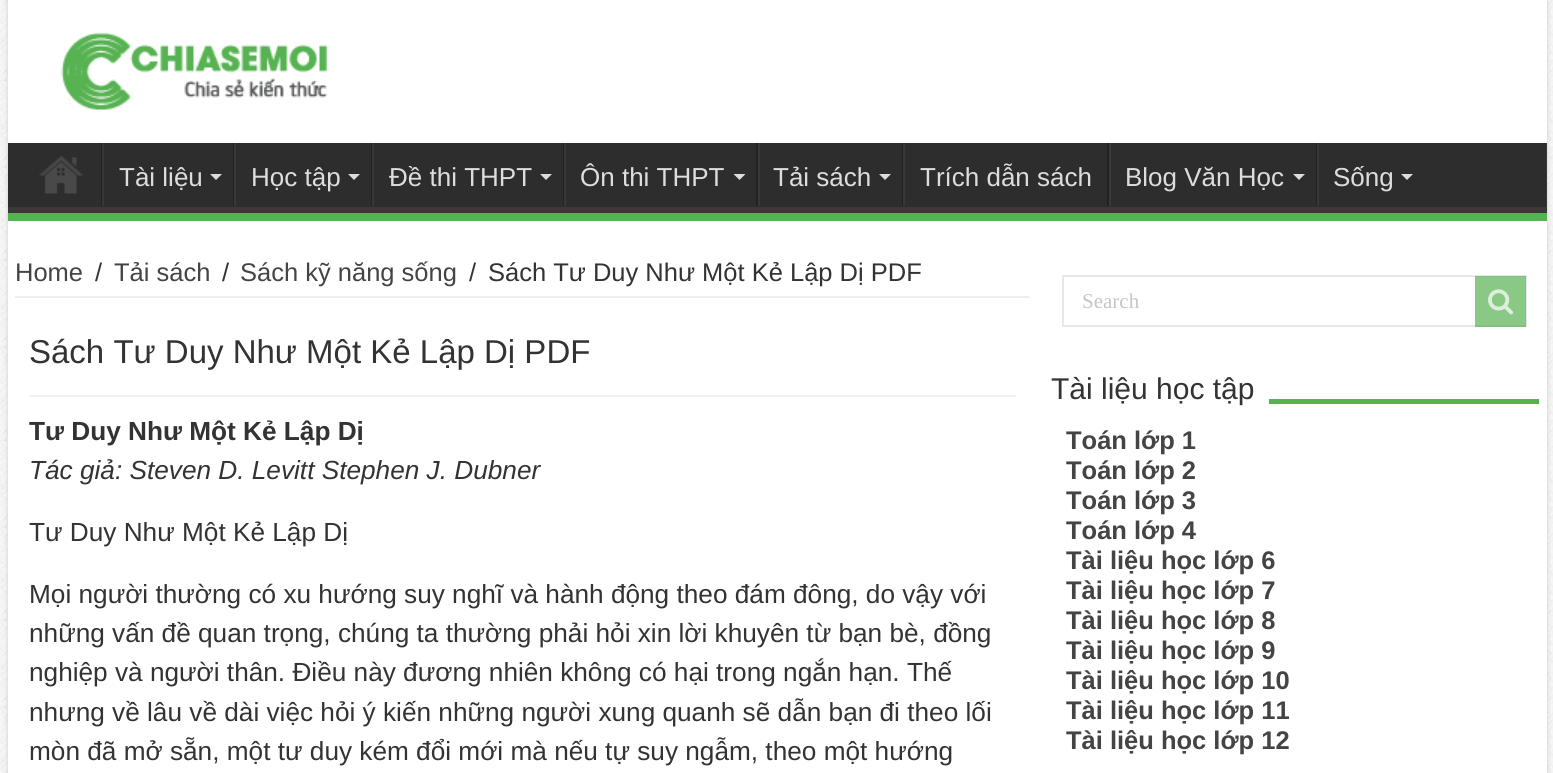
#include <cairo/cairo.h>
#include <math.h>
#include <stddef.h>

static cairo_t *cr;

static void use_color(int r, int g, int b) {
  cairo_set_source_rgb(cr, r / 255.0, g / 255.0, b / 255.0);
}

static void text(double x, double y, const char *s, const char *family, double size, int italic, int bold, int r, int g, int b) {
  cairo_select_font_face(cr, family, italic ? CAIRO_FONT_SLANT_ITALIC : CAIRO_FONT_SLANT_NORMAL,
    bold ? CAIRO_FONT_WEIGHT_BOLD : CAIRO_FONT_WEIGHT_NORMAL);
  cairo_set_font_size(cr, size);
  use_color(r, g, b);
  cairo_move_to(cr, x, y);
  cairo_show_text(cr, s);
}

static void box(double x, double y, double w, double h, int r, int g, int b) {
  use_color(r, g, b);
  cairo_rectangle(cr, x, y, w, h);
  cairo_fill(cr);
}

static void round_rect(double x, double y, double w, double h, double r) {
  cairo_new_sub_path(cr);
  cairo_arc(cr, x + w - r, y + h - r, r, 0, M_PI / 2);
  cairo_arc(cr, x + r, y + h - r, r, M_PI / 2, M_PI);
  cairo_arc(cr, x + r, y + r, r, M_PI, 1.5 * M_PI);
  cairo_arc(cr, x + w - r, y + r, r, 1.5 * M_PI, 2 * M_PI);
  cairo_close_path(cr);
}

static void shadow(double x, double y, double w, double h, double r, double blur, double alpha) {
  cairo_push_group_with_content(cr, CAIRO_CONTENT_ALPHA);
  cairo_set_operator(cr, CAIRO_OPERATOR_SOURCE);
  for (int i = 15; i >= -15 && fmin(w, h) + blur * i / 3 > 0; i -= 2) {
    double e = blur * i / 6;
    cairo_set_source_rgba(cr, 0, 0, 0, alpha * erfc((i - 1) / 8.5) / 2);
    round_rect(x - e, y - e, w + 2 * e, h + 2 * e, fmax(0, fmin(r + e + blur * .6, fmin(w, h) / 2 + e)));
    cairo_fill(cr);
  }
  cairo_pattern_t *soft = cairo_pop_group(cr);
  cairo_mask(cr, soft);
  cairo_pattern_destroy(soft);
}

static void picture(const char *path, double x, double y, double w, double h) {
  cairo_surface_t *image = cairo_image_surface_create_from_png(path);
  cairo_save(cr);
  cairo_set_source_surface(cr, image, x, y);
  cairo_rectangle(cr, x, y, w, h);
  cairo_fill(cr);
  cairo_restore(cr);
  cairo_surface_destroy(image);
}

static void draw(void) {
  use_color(255, 255, 255);
  cairo_paint(cr);
  picture("img_01.png", 0, 0, 1553, 773);
  use_color(202, 202, 202);
  shadow(8, 0, 1539, 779, 0, 2, 1);
  box(8, 0, 1539, 773, 255, 255, 255);
  picture("img_02.png", 61, 32, 267, 78);
  box(8, 143, 1538, 64, 45, 45, 45);
  cairo_save(cr);
  cairo_rectangle(cr, 8, 143, 1539, 70);
  cairo_clip(cr);
  use_color(57, 57, 57);
  cairo_set_fill_rule(cr, CAIRO_FILL_RULE_EVEN_ODD);
  cairo_new_path(cr);
  cairo_move_to(cr, -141, -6);
  cairo_line_to(cr, 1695, -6);
  cairo_line_to(cr, 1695, 362);
  cairo_line_to(cr, -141, 362);
  cairo_close_path(cr);
  cairo_move_to(cr, 6, 134);
  cairo_line_to(cr, 1545, 134);
  cairo_curve_to(cr, 1546, 134, 1546, 134, 1546, 135);
  cairo_line_to(cr, 1546, 206);
  cairo_curve_to(cr, 1546, 206, 1546, 207, 1545, 207);
  cairo_line_to(cr, 6, 207);
  cairo_curve_to(cr, 5, 207, 4, 206, 4, 206);
  cairo_line_to(cr, 4, 135);
  cairo_curve_to(cr, 4, 134, 5, 134, 6, 134);
  cairo_close_path(cr);
  cairo_fill(cr);
  cairo_restore(cr);
  box(8, 213, 1539, 8, 87, 178, 82);
  picture("img_03.png", 39, 156, 44, 38);
  box(101, 143, 1, 63, 34, 34, 34);
  box(102, 143, 2, 63, 56, 56, 56);
  use_color(221, 221, 221);
  cairo_new_path(cr);
  cairo_move_to(cr, 210, 174);
  cairo_line_to(cr, 222, 174);
  cairo_line_to(cr, 216, 180);
  cairo_close_path(cr);
  cairo_fill(cr);
  box(233, 143, 1, 63, 34, 34, 34);
  box(234, 143, 2, 63, 56, 56, 56);
  use_color(221, 221, 221);
  cairo_new_path(cr);
  cairo_move_to(cr, 348, 174);
  cairo_line_to(cr, 360, 174);
  cairo_line_to(cr, 354, 180);
  cairo_close_path(cr);
  cairo_fill(cr);
  box(371, 143, 1, 63, 34, 34, 34);
  box(372, 143, 2, 63, 56, 56, 56);
  use_color(221, 221, 221);
  cairo_new_path(cr);
  cairo_move_to(cr, 540, 174);
  cairo_line_to(cr, 552, 174);
  cairo_line_to(cr, 546, 180);
  cairo_close_path(cr);
  cairo_fill(cr);
  box(563, 143, 1, 63, 34, 34, 34);
  box(564, 143, 2, 63, 56, 56, 56);
  use_color(221, 221, 221);
  cairo_new_path(cr);
  cairo_move_to(cr, 733.5, 174);
  cairo_line_to(cr, 745.5, 174);
  cairo_line_to(cr, 739.5, 180);
  cairo_close_path(cr);
  cairo_fill(cr);
  box(756, 143, 2, 63, 34, 34, 34);
  box(758, 143, 2, 63, 56, 56, 56);
  use_color(221, 221, 221);
  cairo_new_path(cr);
  cairo_move_to(cr, 879, 174);
  cairo_line_to(cr, 891, 174);
  cairo_line_to(cr, 885, 180);
  cairo_close_path(cr);
  cairo_fill(cr);
  box(902, 143, 1, 63, 34, 34, 34);
  box(903, 143, 2, 63, 56, 56, 56);
  box(1107, 143, 2, 63, 34, 34, 34);
  box(1109, 143, 2, 63, 56, 56, 56);
  use_color(221, 221, 221);
  cairo_new_path(cr);
  cairo_move_to(cr, 1293, 174);
  cairo_line_to(cr, 1305, 174);
  cairo_line_to(cr, 1299, 180);
  cairo_close_path(cr);
  cairo_fill(cr);
  box(1316, 143, 1, 63, 34, 34, 34);
  box(1317, 143, 2, 63, 56, 56, 56);
  use_color(221, 221, 221);
  cairo_new_path(cr);
  cairo_move_to(cr, 1401, 174);
  cairo_line_to(cr, 1413, 174);
  cairo_line_to(cr, 1407, 180);
  cairo_close_path(cr);
  cairo_fill(cr);
  box(15, 296, 1014, 2, 238, 238, 238);
  box(29, 395, 987, 2, 242, 242, 242);
  cairo_rectangle(cr, 1063, 276, 463, 50);
  use_color(232, 232, 232);
  cairo_stroke(cr);
  cairo_set_source_rgba(cr, 0.341, 0.698, 0.322, 0.7);
  cairo_rectangle(cr, 1475, 276, 51, 51);
  cairo_fill(cr);
  picture("img_04.png", 1488, 289, 25, 26);
  box(1269, 399, 270, 5, 87, 178, 82);
  text(119, 186, "Tài liệu", "Liberation Sans", 26, 0, 0, 221, 221, 221);
  text(251, 186, "Học tập", "Liberation Sans", 26, 0, 0, 221, 221, 221);
  text(389, 186, "Đề thi THPT", "Liberation Sans", 26, 0, 0, 221, 221, 221);
  text(580, 186, "Ôn thi THPT", "Liberation Sans", 26, 0, 0, 221, 221, 221);
  text(773, 186, "Tải sách", "Liberation Sans", 26, 0, 0, 221, 221, 221);
  text(920, 186, "Trích dẫn sách", "Liberation Sans", 26, 0, 0, 221, 221, 221);
  text(1125, 186, "Blog Văn Học", "Liberation Sans", 26, 0, 0, 221, 221, 221);
  text(1333, 186, "Sống", "Liberation Sans", 26, 0, 0, 221, 221, 221);
  text(15, 281, "Home", "Liberation Sans", 25.5, 0, 0, 68, 68, 68);
  text(95, 281, "/", "Liberation Sans", 25.5, 0, 0, 51, 51, 51);
  text(114, 281, "Tải sách", "Liberation Sans", 25.5, 0, 0, 68, 68, 68);
  text(222, 281, "/", "Liberation Sans", 25.5, 0, 0, 51, 51, 51);
  text(240, 281, "Sách kỹ năng sống", "Liberation Sans", 25.5, 0, 0, 68, 68, 68);
  text(469, 281, "/", "Liberation Sans", 25.5, 0, 0, 51, 51, 51);
  text(488, 281, "Sách Tư Duy Như Một Kẻ Lập Dị PDF", "Liberation Sans", 25.5, 0, 0, 51, 51, 51);
  text(29, 363, "Sách Tư Duy Như Một Kẻ Lập Dị PDF", "Liberation Sans", 33, 0, 0, 51, 51, 51);
  text(29, 440, "Tư Duy Như Một Kẻ Lập Dị", "Liberation Sans", 26.2, 0, 1, 51, 51, 51);
  text(29, 479, "Tác giả: Steven D. Levitt Stephen J. Dubner", "Liberation Sans", 26.2, 1, 0, 51, 51, 51);
  text(29, 541, "Tư Duy Như Một Kẻ Lập Dị", "Liberation Sans", 26.2, 0, 0, 51, 51, 51);
  text(29, 603, "Mọi người thường có xu hướng suy nghĩ và hành động theo đám đông, do vậy với", "Liberation Sans", 26.2, 0, 0, 51, 51, 51);
  text(29, 642, "những vấn đề quan trọng, chúng ta thường phải hỏi xin lời khuyên từ bạn bè, đồng", "Liberation Sans", 26.2, 0, 0, 51, 51, 51);
  text(29, 681, "nghiệp và người thân. Điều này đương nhiên không có hại trong ngắn hạn. Thế", "Liberation Sans", 26.2, 0, 0, 51, 51, 51);
  text(29, 721, "nhưng về lâu về dài việc hỏi ý kiến những người xung quanh sẽ dẫn bạn đi theo lối", "Liberation Sans", 26.2, 0, 0, 51, 51, 51);
  text(29, 760, "mòn đã mở sẵn, một tư duy kém đổi mới mà nếu tự suy ngẫm, theo một hướng", "Liberation Sans", 26.2, 0, 0, 51, 51, 51);
  text(1082, 308, "Search", "Liberation Serif", 21, 0, 0, 197, 197, 197);
  text(1051, 399, "Tài liệu học tập", "Liberation Sans", 30, 0, 0, 51, 51, 51);
  text(1066, 449, "Toán lớp 1", "Liberation Sans", 25.5, 0, 1, 68, 68, 68);
  text(1066, 479, "Toán lớp 2", "Liberation Sans", 25.5, 0, 1, 68, 68, 68);
  text(1066, 509, "Toán lớp 3", "Liberation Sans", 25.5, 0, 1, 68, 68, 68);
  text(1066, 539, "Toán lớp 4", "Liberation Sans", 25.5, 0, 1, 68, 68, 68);
  text(1066, 569, "Tài liệu học lớp 6", "Liberation Sans", 25.5, 0, 1, 68, 68, 68);
  text(1066, 599, "Tài liệu học lớp 7", "Liberation Sans", 25.5, 0, 1, 68, 68, 68);
  text(1066, 629, "Tài liệu học lớp 8", "Liberation Sans", 25.5, 0, 1, 68, 68, 68);
  text(1066, 659, "Tài liệu học lớp 9", "Liberation Sans", 25.5, 0, 1, 68, 68, 68);
  text(1066, 689, "Tài liệu học lớp 10", "Liberation Sans", 25.5, 0, 1, 68, 68, 68);
  text(1066, 719, "Tài liệu học lớp 11", "Liberation Sans", 25.5, 0, 1, 68, 68, 68);
  text(1066, 749, "Tài liệu học lớp 12", "Liberation Sans", 25.5, 0, 1, 68, 68, 68);
}

int main(void) {
  cairo_surface_t *surface = cairo_image_surface_create(CAIRO_FORMAT_RGB24, 1553, 773);
  cr = cairo_create(surface);
  cairo_font_options_t *options = cairo_font_options_create();
  cairo_font_options_set_hint_metrics(options, CAIRO_HINT_METRICS_OFF);
  cairo_font_options_set_hint_style(options, CAIRO_HINT_STYLE_NONE);
  cairo_set_font_options(cr, options);
  cairo_set_miter_limit(cr, 4);
  draw();
  cairo_surface_write_to_png(surface, "out.png");
  cairo_font_options_destroy(options);
  cairo_destroy(cr);
  cairo_surface_destroy(surface);
  return 0;
}
